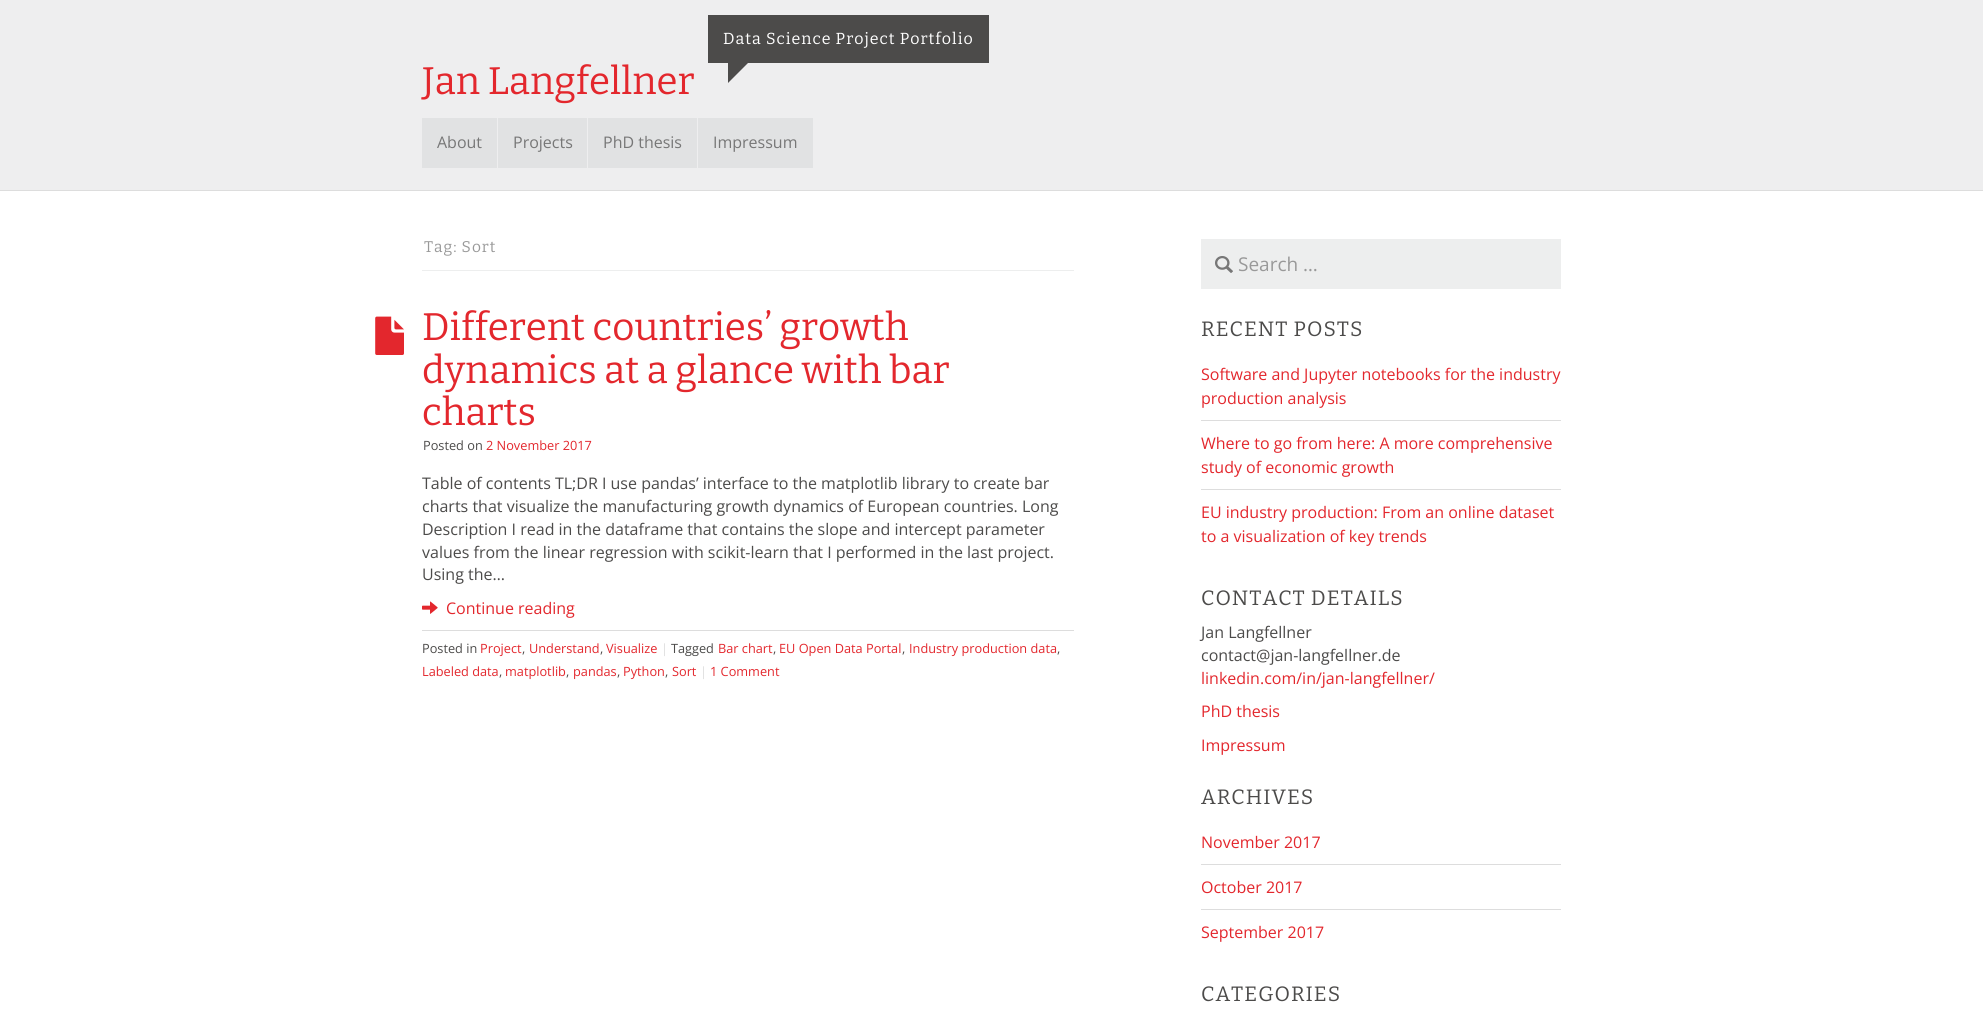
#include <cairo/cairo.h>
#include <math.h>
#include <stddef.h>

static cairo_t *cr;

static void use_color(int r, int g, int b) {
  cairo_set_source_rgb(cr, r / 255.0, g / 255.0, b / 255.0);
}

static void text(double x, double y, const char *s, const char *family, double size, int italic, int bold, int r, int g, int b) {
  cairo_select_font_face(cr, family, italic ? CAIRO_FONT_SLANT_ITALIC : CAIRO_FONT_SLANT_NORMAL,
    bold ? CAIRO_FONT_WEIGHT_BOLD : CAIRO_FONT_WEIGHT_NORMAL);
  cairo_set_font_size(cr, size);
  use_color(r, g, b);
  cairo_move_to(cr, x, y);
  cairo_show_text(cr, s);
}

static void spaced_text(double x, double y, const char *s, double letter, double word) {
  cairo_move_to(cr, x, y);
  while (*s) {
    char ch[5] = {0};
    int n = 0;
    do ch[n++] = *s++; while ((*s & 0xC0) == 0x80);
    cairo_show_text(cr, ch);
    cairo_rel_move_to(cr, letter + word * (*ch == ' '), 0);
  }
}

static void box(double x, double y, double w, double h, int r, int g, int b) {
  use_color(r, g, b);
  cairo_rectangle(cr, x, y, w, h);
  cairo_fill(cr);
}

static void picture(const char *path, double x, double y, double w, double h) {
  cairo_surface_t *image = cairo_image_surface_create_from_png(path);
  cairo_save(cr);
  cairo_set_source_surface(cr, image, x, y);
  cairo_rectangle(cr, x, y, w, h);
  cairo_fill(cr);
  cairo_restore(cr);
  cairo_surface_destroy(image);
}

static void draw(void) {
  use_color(255, 255, 255);
  cairo_paint(cr);
  box(0, 0, 1983, 190, 238, 238, 239);
  box(0, 190, 1983, 1, 221, 221, 221);
  box(708, 15, 281, 48, 76, 75, 74);
  cairo_new_path(cr);
  cairo_move_to(cr, 728, 83);
  cairo_line_to(cr, 728, 63);
  cairo_line_to(cr, 748, 63);
  cairo_close_path(cr);
  cairo_fill(cr);
  box(422, 118, 75, 50, 225, 226, 227);
  box(498, 118, 89, 50, 225, 226, 227);
  box(588, 118, 109, 50, 225, 226, 227);
  box(698, 118, 115, 50, 225, 226, 227);
  box(422, 270, 652, 1, 237, 238, 238);
  picture("img_01.png", 375, 316, 29, 39);
  picture("img_02.png", 422, 601, 16, 13);
  box(422, 630, 652, 1, 221, 221, 221);
  box(1201, 239, 360, 50, 237, 238, 238);
  picture("img_03.png", 1215, 256, 18, 17);
  box(1201, 420, 360, 1, 221, 221, 221);
  box(1201, 489, 360, 1, 221, 221, 221);
  box(1201, 864, 360, 1, 221, 221, 221);
  box(1201, 909, 360, 1, 221, 221, 221);
  cairo_select_font_face(cr, "Bitter", CAIRO_FONT_SLANT_NORMAL, CAIRO_FONT_WEIGHT_NORMAL);
  cairo_set_font_size(cr, 16);
  use_color(255, 255, 255);
  spaced_text(723, 44, "Data Science Project Portfolio", 1, 0);
  text(422, 94, "Jan Langfellner", "Bitter", 38.4, 0, 0, 227, 39, 45);
  text(437, 148, "About", "Open Sans", 16, 0, 0, 119, 119, 119);
  text(513, 148, "Projects", "Open Sans", 16, 0, 0, 119, 119, 119);
  text(603, 148, "PhD thesis", "Open Sans", 16, 0, 0, 119, 119, 119);
  text(713, 148, "Impressum", "Open Sans", 16, 0, 0, 119, 119, 119);
  cairo_select_font_face(cr, "Bitter", CAIRO_FONT_SLANT_NORMAL, CAIRO_FONT_WEIGHT_NORMAL);
  cairo_set_font_size(cr, 15.5);
  use_color(153, 153, 153);
  spaced_text(424, 252, "Tag: Sort", 1, 0);
  text(422, 340, "Different countries’ growth", "Bitter", 38.4, 0, 0, 227, 39, 45);
  text(422, 383, "dynamics at a glance with bar", "Bitter", 38.4, 0, 0, 227, 39, 45);
  text(422, 425, "charts", "Bitter", 38.4, 0, 0, 227, 39, 45);
  text(423, 450, "Posted on", "Open Sans", 12.75, 0, 0, 76, 75, 74);
  text(486, 450, "2 November 2017", "Open Sans", 12.75, 0, 0, 227, 39, 45);
  text(422, 489, "Table of contents TL;DR I use pandas’ interface to the matplotlib library to create bar", "Open Sans", 16, 0, 0, 76, 75, 74);
  text(422, 512, "charts that visualize the manufacturing growth dynamics of European countries. Long", "Open Sans", 16, 0, 0, 76, 75, 74);
  text(422, 535, "Description I read in the dataframe that contains the slope and intercept parameter", "Open Sans", 16, 0, 0, 76, 75, 74);
  text(422, 558, "values from the linear regression with scikit-learn that I performed in the last project.", "Open Sans", 16, 0, 0, 76, 75, 74);
  text(422, 580, "Using the…", "Open Sans", 16, 0, 0, 76, 75, 74);
  text(446, 614, "Continue reading", "Open Sans", 16, 0, 0, 227, 39, 45);
  text(422, 653, "Posted in", "Open Sans", 12.75, 0, 0, 76, 75, 74);
  text(480, 653, "Project", "Open Sans", 12.75, 0, 0, 227, 39, 45);
  text(522, 653, ",", "Open Sans", 12.75, 0, 0, 76, 75, 74);
  text(529, 653, "Understand", "Open Sans", 12.75, 0, 0, 227, 39, 45);
  text(600, 653, ",", "Open Sans", 12.75, 0, 0, 76, 75, 74);
  text(606, 653, "Visualize", "Open Sans", 12.75, 0, 0, 227, 39, 45);
  text(661, 653, "|", "Open Sans", 12.75, 0, 0, 221, 221, 221);
  text(671, 653, "Tagged", "Open Sans", 12.75, 0, 0, 76, 75, 74);
  text(718, 653, "Bar chart", "Open Sans", 12.75, 0, 0, 227, 39, 45);
  text(773, 653, ",", "Open Sans", 12.75, 0, 0, 76, 75, 74);
  text(779, 653, "EU Open Data Portal", "Open Sans", 12.75, 0, 0, 227, 39, 45);
  text(902, 653, ",", "Open Sans", 12.75, 0, 0, 76, 75, 74);
  text(909, 653, "Industry production data", "Open Sans", 12.75, 0, 0, 227, 39, 45);
  text(1057, 653, ",", "Open Sans", 12.75, 0, 0, 76, 75, 74);
  text(422, 676, "Labeled data", "Open Sans", 12.75, 0, 0, 227, 39, 45);
  text(499, 676, ",", "Open Sans", 12.75, 0, 0, 76, 75, 74);
  text(505, 676, "matplotlib", "Open Sans", 12.75, 0, 0, 227, 39, 45);
  text(566, 676, ",", "Open Sans", 12.75, 0, 0, 76, 75, 74);
  text(573, 676, "pandas", "Open Sans", 12.75, 0, 0, 227, 39, 45);
  text(617, 676, ",", "Open Sans", 12.75, 0, 0, 76, 75, 74);
  text(623, 676, "Python", "Open Sans", 12.75, 0, 0, 227, 39, 45);
  text(665, 676, ",", "Open Sans", 12.75, 0, 0, 76, 75, 74);
  text(672, 676, "Sort", "Open Sans", 12.75, 0, 0, 227, 39, 45);
  text(700, 676, "|", "Open Sans", 12.75, 0, 0, 221, 221, 221);
  text(710, 676, "1 Comment", "Open Sans", 12.75, 0, 0, 227, 39, 45);
  text(1238, 271, "Search …", "Open Sans", 19, 0, 0, 153, 153, 153);
  cairo_select_font_face(cr, "Bitter", CAIRO_FONT_SLANT_NORMAL, CAIRO_FONT_WEIGHT_NORMAL);
  cairo_set_font_size(cr, 20.75);
  use_color(76, 75, 74);
  spaced_text(1201, 336, "RECENT POSTS", 1, 0);
  text(1201, 380, "Software and Jupyter notebooks for the industry", "Open Sans", 16, 0, 0, 227, 39, 45);
  text(1201, 404, "production analysis", "Open Sans", 16, 0, 0, 227, 39, 45);
  text(1201, 449, "Where to go from here: A more comprehensive", "Open Sans", 16, 0, 0, 227, 39, 45);
  text(1201, 473, "study of economic growth", "Open Sans", 16, 0, 0, 227, 39, 45);
  text(1201, 518, "EU industry production: From an online dataset", "Open Sans", 16, 0, 0, 227, 39, 45);
  text(1201, 542, "to a visualization of key trends", "Open Sans", 16, 0, 0, 227, 39, 45);
  cairo_select_font_face(cr, "Bitter", CAIRO_FONT_SLANT_NORMAL, CAIRO_FONT_WEIGHT_NORMAL);
  cairo_set_font_size(cr, 20.75);
  use_color(76, 75, 74);
  spaced_text(1201, 605, "CONTACT DETAILS", 1, 0);
  text(1201, 638, "Jan Langfellner", "Open Sans", 16, 0, 0, 76, 75, 74);
  text(1201, 661, "contact@jan-langfellner.de", "Open Sans", 16, 0, 0, 76, 75, 74);
  text(1201, 684, "linkedin.com/in/jan-langfellner/", "Open Sans", 16, 0, 0, 227, 39, 45);
  text(1201, 717, "PhD thesis", "Open Sans", 16, 0, 0, 227, 39, 45);
  text(1201, 751, "Impressum", "Open Sans", 16, 0, 0, 227, 39, 45);
  cairo_select_font_face(cr, "Bitter", CAIRO_FONT_SLANT_NORMAL, CAIRO_FONT_WEIGHT_NORMAL);
  cairo_set_font_size(cr, 20.75);
  use_color(76, 75, 74);
  spaced_text(1201, 804, "ARCHIVES", 1, 0);
  text(1201, 848, "November 2017", "Open Sans", 16, 0, 0, 227, 39, 45);
  text(1201, 893, "October 2017", "Open Sans", 16, 0, 0, 227, 39, 45);
  text(1201, 938, "September 2017", "Open Sans", 16, 0, 0, 227, 39, 45);
  cairo_select_font_face(cr, "Bitter", CAIRO_FONT_SLANT_NORMAL, CAIRO_FONT_WEIGHT_NORMAL);
  cairo_set_font_size(cr, 20.75);
  use_color(76, 75, 74);
  spaced_text(1201, 1001, "CATEGORIES", 1, 0);
}

int main(void) {
  cairo_surface_t *surface = cairo_image_surface_create(CAIRO_FORMAT_RGB24, 1983, 1025);
  cr = cairo_create(surface);
  cairo_font_options_t *options = cairo_font_options_create();
  cairo_font_options_set_hint_metrics(options, CAIRO_HINT_METRICS_OFF);
  cairo_font_options_set_hint_style(options, CAIRO_HINT_STYLE_NONE);
  cairo_set_font_options(cr, options);
  cairo_set_miter_limit(cr, 4);
  draw();
  cairo_surface_write_to_png(surface, "out.png");
  cairo_font_options_destroy(options);
  cairo_destroy(cr);
  cairo_surface_destroy(surface);
  return 0;
}
